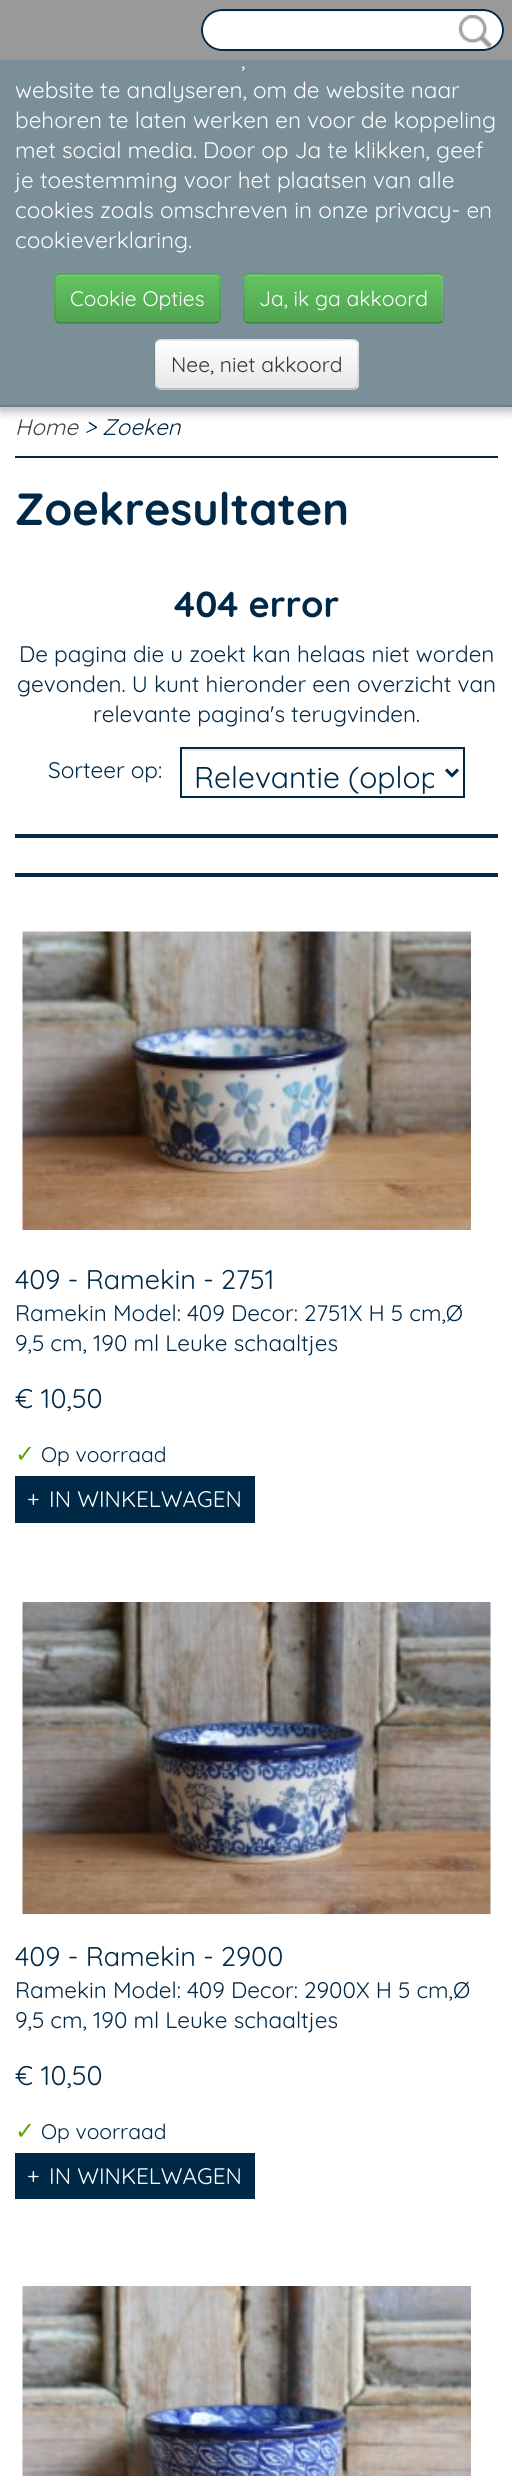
#include <cairo/cairo.h>
#include <math.h>
#include <stddef.h>

static cairo_t *cr;

static void use_color(int r, int g, int b) {
  cairo_set_source_rgb(cr, r / 255.0, g / 255.0, b / 255.0);
}

static void text(double x, double y, const char *s, const char *family, double size, int italic, int bold, int r, int g, int b) {
  cairo_select_font_face(cr, family, italic ? CAIRO_FONT_SLANT_ITALIC : CAIRO_FONT_SLANT_NORMAL,
    bold ? CAIRO_FONT_WEIGHT_BOLD : CAIRO_FONT_WEIGHT_NORMAL);
  cairo_set_font_size(cr, size);
  use_color(r, g, b);
  cairo_move_to(cr, x, y);
  cairo_show_text(cr, s);
}

static void box(double x, double y, double w, double h, int r, int g, int b) {
  use_color(r, g, b);
  cairo_rectangle(cr, x, y, w, h);
  cairo_fill(cr);
}

static void round_rect(double x, double y, double w, double h, double r) {
  cairo_new_sub_path(cr);
  cairo_arc(cr, x + w - r, y + h - r, r, 0, M_PI / 2);
  cairo_arc(cr, x + r, y + h - r, r, M_PI / 2, M_PI);
  cairo_arc(cr, x + r, y + r, r, M_PI, 1.5 * M_PI);
  cairo_arc(cr, x + w - r, y + r, r, 1.5 * M_PI, 2 * M_PI);
  cairo_close_path(cr);
}

static void shadow(double x, double y, double w, double h, double r, double blur, double alpha) {
  cairo_push_group_with_content(cr, CAIRO_CONTENT_ALPHA);
  cairo_set_operator(cr, CAIRO_OPERATOR_SOURCE);
  for (int i = 15; i >= -15 && fmin(w, h) + blur * i / 3 > 0; i -= 2) {
    double e = blur * i / 6;
    cairo_set_source_rgba(cr, 0, 0, 0, alpha * erfc((i - 1) / 8.5) / 2);
    round_rect(x - e, y - e, w + 2 * e, h + 2 * e, fmax(0, fmin(r + e + blur * .6, fmin(w, h) / 2 + e)));
    cairo_fill(cr);
  }
  cairo_pattern_t *soft = cairo_pop_group(cr);
  cairo_mask(cr, soft);
  cairo_pattern_destroy(soft);
}

static void picture(const char *path, double x, double y, double w, double h) {
  cairo_surface_t *image = cairo_image_surface_create_from_png(path);
  cairo_save(cr);
  cairo_set_source_surface(cr, image, x, y);
  cairo_rectangle(cr, x, y, w, h);
  cairo_fill(cr);
  cairo_restore(cr);
  cairo_surface_destroy(image);
}

static void draw(void) {
  cairo_pattern_t *gradient;
  use_color(255, 255, 255);
  cairo_paint(cr);
  use_color(0, 0, 0);
  shadow(0, 5, 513, 406, 0, 5, 0.3);
  box(0, 0, 512, 60, 153, 153, 153);
  use_color(255, 255, 255);
  round_rect(201, 9, 303, 42, 21);
  cairo_fill(cr);
  use_color(236, 239, 241);
  cairo_new_path(cr);
  cairo_move_to(cr, 222, 12);
  cairo_line_to(cr, 483, 12);
  cairo_curve_to(cr, 494, 12, 502, 21, 502, 32);
  cairo_curve_to(cr, 502, 36, 501, 40, 499, 43);
  cairo_curve_to(cr, 501, 39, 503, 35, 503, 30);
  cairo_curve_to(cr, 503, 20, 494, 11, 484, 11);
  cairo_line_to(cr, 222, 11);
  cairo_curve_to(cr, 216, 11, 210, 14, 206, 20);
  cairo_curve_to(cr, 210, 15, 216, 12, 222, 12);
  cairo_close_path(cr);
  cairo_fill(cr);
  round_rect(202, 10, 301, 40, 20);
  use_color(0, 40, 71);
  cairo_stroke(cr);
  picture("img_01.png", 458, 15, 34, 33);
  box(0, 60, 512, 345, 122, 143, 152);
  box(0, 405, 512, 2, 105, 126, 135);
  use_color(91, 183, 91);
  round_rect(54, 273, 167, 51, 6);
  cairo_fill(cr);
  cairo_save(cr);
  round_rect(54, 273, 167, 51, 6);
  cairo_clip(cr);
  gradient = cairo_pattern_create_linear(137, 275, 137, 323);
  cairo_pattern_add_color_stop_rgba(gradient, 0, 0.384, 0.769, 0.384, 1);
  cairo_pattern_add_color_stop_rgba(gradient, 1, 0.318, 0.639, 0.318, 1);
  cairo_set_source(cr, gradient);
  cairo_pattern_destroy(gradient);
  cairo_rectangle(cr, 54, 275, 167, 48);
  cairo_fill(cr);
  cairo_restore(cr);
  use_color(129, 208, 129);
  cairo_new_path(cr);
  cairo_move_to(cr, 60, 276);
  cairo_line_to(cr, 214, 276);
  cairo_curve_to(cr, 217, 276, 219, 278, 219, 280);
  cairo_curve_to(cr, 219, 277, 217, 275, 214, 275);
  cairo_line_to(cr, 61, 275);
  cairo_curve_to(cr, 58, 275, 56, 277, 56, 280);
  cairo_curve_to(cr, 56, 278, 58, 276, 60, 276);
  cairo_close_path(cr);
  cairo_fill(cr);
  cairo_new_path(cr);
  cairo_move_to(cr, 218, 321.5);
  cairo_curve_to(cr, 217, 322.5, 216, 323, 214.5, 323);
  cairo_line_to(cr, 60, 323);
  cairo_curve_to(cr, 58.5, 323, 57.5, 322.5, 56.5, 321.5);
  cairo_set_source_rgba(cr, 0, 0, 0, 0.25);
  cairo_set_line_width(cr, 1.5);
  cairo_stroke(cr);
  cairo_new_path(cr);
  cairo_move_to(cr, 56.5, 321.5);
  cairo_curve_to(cr, 55.5, 320.5, 55, 319.5, 55, 318);
  cairo_line_to(cr, 55, 279);
  cairo_curve_to(cr, 55, 277.5, 55.5, 276.5, 56.5, 275.5);
  cairo_curve_to(cr, 57.5, 274.5, 58.5, 274, 60, 274);
  cairo_line_to(cr, 214.5, 274);
  cairo_curve_to(cr, 216, 274, 217, 274.5, 218, 275.5);
  cairo_curve_to(cr, 219, 276.5, 220, 277.5, 220, 279);
  cairo_line_to(cr, 220, 318);
  cairo_curve_to(cr, 220, 319.5, 219, 320.5, 218, 321.5);
  cairo_set_source_rgba(cr, 0, 0, 0, 0.1);
  cairo_stroke(cr);
  use_color(91, 183, 91);
  round_rect(243, 273, 201, 51, 6);
  cairo_fill(cr);
  cairo_save(cr);
  round_rect(243, 273, 201, 51, 6);
  cairo_clip(cr);
  gradient = cairo_pattern_create_linear(344, 275, 344, 323);
  cairo_pattern_add_color_stop_rgba(gradient, 0, 0.384, 0.769, 0.384, 1);
  cairo_pattern_add_color_stop_rgba(gradient, 1, 0.318, 0.639, 0.318, 1);
  cairo_set_source(cr, gradient);
  cairo_pattern_destroy(gradient);
  cairo_rectangle(cr, 243, 275, 201, 48);
  cairo_fill(cr);
  cairo_restore(cr);
  cairo_set_source_rgba(cr, 1, 1, 1, 0.2);
  cairo_new_path(cr);
  cairo_move_to(cr, 249, 276);
  cairo_line_to(cr, 438, 276);
  cairo_curve_to(cr, 440, 276, 442, 278, 442, 280);
  cairo_line_to(cr, 442, 321);
  cairo_curve_to(cr, 443, 320, 443, 319, 443, 318);
  cairo_line_to(cr, 443, 280);
  cairo_curve_to(cr, 443, 277, 441, 275, 438, 275);
  cairo_line_to(cr, 250, 275);
  cairo_curve_to(cr, 248, 275, 247, 276, 246, 277);
  cairo_close_path(cr);
  cairo_fill(cr);
  cairo_new_path(cr);
  cairo_move_to(cr, 441.5, 321.5);
  cairo_curve_to(cr, 440.5, 322.5, 439.5, 323, 438, 323);
  cairo_line_to(cr, 249, 323);
  cairo_curve_to(cr, 247.5, 323, 246.5, 322.5, 245.5, 321.5);
  cairo_set_source_rgba(cr, 0, 0, 0, 0.25);
  cairo_stroke(cr);
  cairo_new_path(cr);
  cairo_move_to(cr, 245.5, 321.5);
  cairo_curve_to(cr, 243, 319, 244, 314.5, 244, 311.5);
  cairo_line_to(cr, 244, 305);
  cairo_curve_to(cr, 244, 266, 237.5, 274, 280.5, 274);
  cairo_line_to(cr, 406.5, 274);
  cairo_curve_to(cr, 449.5, 274, 443, 266, 443, 305);
  cairo_line_to(cr, 443, 311.5);
  cairo_curve_to(cr, 443, 314.5, 444, 319, 441.5, 321.5);
  cairo_set_source_rgba(cr, 0, 0, 0, 0.1);
  cairo_stroke(cr);
  use_color(245, 245, 245);
  round_rect(155, 339, 204, 51, 6);
  cairo_fill(cr);
  cairo_save(cr);
  round_rect(155, 339, 204, 51, 6);
  cairo_clip(cr);
  gradient = cairo_pattern_create_linear(257, 341, 257, 389);
  cairo_pattern_add_color_stop_rgba(gradient, 0, 1, 1, 1, 1);
  cairo_pattern_add_color_stop_rgba(gradient, 1, 0.902, 0.902, 0.902, 1);
  cairo_set_source(cr, gradient);
  cairo_pattern_destroy(gradient);
  cairo_rectangle(cr, 155, 341, 204, 48);
  cairo_fill(cr);
  cairo_restore(cr);
  cairo_new_path(cr);
  cairo_move_to(cr, 356, 387.5);
  cairo_curve_to(cr, 355, 388.5, 354, 389, 352.5, 389);
  cairo_line_to(cr, 160.5, 389);
  cairo_curve_to(cr, 159, 389, 158, 388.5, 157, 387.5);
  cairo_set_source_rgba(cr, 0, 0, 0, 0.25);
  cairo_stroke(cr);
  cairo_new_path(cr);
  cairo_move_to(cr, 157, 387.5);
  cairo_curve_to(cr, 154.5, 385, 155, 380.5, 155, 377.5);
  cairo_line_to(cr, 155, 371);
  cairo_curve_to(cr, 155, 332, 149, 340, 192.5, 340);
  cairo_line_to(cr, 320.5, 340);
  cairo_curve_to(cr, 364, 340, 358, 332, 358, 371);
  cairo_line_to(cr, 358, 377.5);
  cairo_curve_to(cr, 358, 380.5, 358.5, 385, 356, 387.5);
  cairo_set_source_rgba(cr, 0, 0, 0, 0.1);
  cairo_stroke(cr);
  box(15, 456, 483, 2, 0, 40, 71);
  box(182, 749, 282, 2, 236, 236, 236);
  cairo_rectangle(cr, 181, 748, 283, 49);
  use_color(0, 40, 71);
  cairo_set_line_width(cr, 2);
  cairo_stroke(cr);
  cairo_new_path(cr);
  cairo_move_to(cr, 446, 769.5);
  cairo_line_to(cr, 452, 775.5);
  cairo_line_to(cr, 458, 769.5);
  cairo_set_line_width(cr, 3);
  cairo_stroke(cr);
  box(15, 834, 483, 4, 0, 40, 71);
  box(15, 873, 483, 4, 0, 40, 71);
  picture("img_02.png", 22, 931, 449, 299);
  box(15, 1476, 240, 47, 0, 40, 71);
  picture("img_03.png", 22, 1602, 469, 312);
  box(15, 2153, 240, 46, 0, 40, 71);
  picture("img_04.png", 22, 2286, 449, 190);
  text(241, 68, ",", "Quicksand", 22.5, 0, 0, 255, 255, 255);
  text(15, 98, "website te analyseren, om de website naar", "Quicksand", 22.5, 0, 0, 255, 255, 255);
  text(15, 128, "behoren te laten werken en voor de koppeling", "Quicksand", 22.5, 0, 0, 255, 255, 255);
  text(15, 158, "met social media. Door op Ja te klikken, geef", "Quicksand", 22.5, 0, 0, 255, 255, 255);
  text(15, 188, "je toestemming voor het plaatsen van alle", "Quicksand", 22.5, 0, 0, 255, 255, 255);
  text(15, 218, "cookies zoals omschreven in onze privacy- en", "Quicksand", 22.5, 0, 0, 255, 255, 255);
  text(15, 248, "cookieverklaring.", "Quicksand", 22.5, 0, 0, 255, 255, 255);
  text(70, 306, "Cookie Opties", "Quicksand", 21, 0, 0, 255, 255, 255);
  text(259, 306, "Ja, ik ga akkoord", "Quicksand", 21, 0, 0, 255, 255, 255);
  text(171, 372, "Nee, niet akkoord", "Quicksand", 21, 0, 0, 51, 51, 51);
  text(15, 435, "Home", "Quicksand", 22.5, 1, 0, 68, 68, 68);
  text(84, 435, "> Zoeken", "Quicksand", 22.5, 1, 0, 0, 40, 71);
  text(15, 525, "Zoekresultaten", "Quicksand", 45, 0, 1, 0, 40, 71);
  text(174, 617, "404 error", "Quicksand", 36, 0, 1, 0, 40, 71);
  text(19, 662, "De pagina die u zoekt kan helaas niet worden", "Quicksand", 22.5, 0, 0, 0, 40, 71);
  text(17, 692, "gevonden. U kunt hieronder een overzicht van", "Quicksand", 22.5, 0, 0, 0, 40, 71);
  text(93, 722, "relevante pagina's terugvinden.", "Quicksand", 22.5, 0, 0, 0, 40, 71);
  text(48, 778, "Sorteer op:", "Quicksand", 22.5, 0, 0, 0, 40, 71);
  cairo_save(cr);
  cairo_rectangle(cr, 194, 756, 240, 41);
  cairo_clip(cr);
  text(194, 788, "Relevantie (oplop", "Quicksand", 30, 0, 0, 0, 40, 71);
  cairo_restore(cr);
  text(15, 1289, "409 - Ramekin - 2751", "Quicksand", 27, 0, 0, 0, 40, 71);
  text(15, 1321, "Ramekin Model: 409 Decor: 2751X H 5 cm,Ø", "Quicksand", 22.5, 0, 0, 0, 40, 71);
  text(15, 1351, "9,5 cm, 190 ml Leuke schaaltjes", "Quicksand", 22.5, 0, 0, 0, 40, 71);
  text(15, 1408, "€ 10,50", "Quicksand", 27, 0, 0, 0, 40, 71);
  text(15, 1462, "✓", "DejaVu Sans", 24, 0, 0, 94, 166, 0);
  text(41, 1462, "Op voorraad", "Quicksand", 21, 0, 0, 0, 40, 71);
  text(27, 1507, "+", "Quicksand", 22.5, 0, 0, 255, 255, 255);
  text(49, 1507, "IN WINKELWAGEN", "Quicksand", 22.5, 0, 0, 255, 255, 255);
  text(15, 1966, "409 - Ramekin - 2900", "Quicksand", 27, 0, 0, 0, 40, 71);
  text(15, 1998, "Ramekin Model: 409 Decor: 2900X H 5 cm,Ø", "Quicksand", 22.5, 0, 0, 0, 40, 71);
  text(15, 2028, "9,5 cm, 190 ml Leuke schaaltjes", "Quicksand", 22.5, 0, 0, 0, 40, 71);
  text(15, 2085, "€ 10,50", "Quicksand", 27, 0, 0, 0, 40, 71);
  text(15, 2139, "✓", "DejaVu Sans", 24, 0, 0, 94, 166, 0);
  text(41, 2139, "Op voorraad", "Quicksand", 21, 0, 0, 0, 40, 71);
  text(27, 2184, "+", "Quicksand", 22.5, 0, 0, 255, 255, 255);
  text(49, 2184, "IN WINKELWAGEN", "Quicksand", 22.5, 0, 0, 255, 255, 255);
}

int main(void) {
  cairo_surface_t *surface = cairo_image_surface_create(CAIRO_FORMAT_RGB24, 512, 2476);
  cr = cairo_create(surface);
  cairo_font_options_t *options = cairo_font_options_create();
  cairo_font_options_set_hint_metrics(options, CAIRO_HINT_METRICS_OFF);
  cairo_font_options_set_hint_style(options, CAIRO_HINT_STYLE_NONE);
  cairo_set_font_options(cr, options);
  cairo_set_miter_limit(cr, 4);
  draw();
  cairo_surface_write_to_png(surface, "out.png");
  cairo_font_options_destroy(options);
  cairo_destroy(cr);
  cairo_surface_destroy(surface);
  return 0;
}
